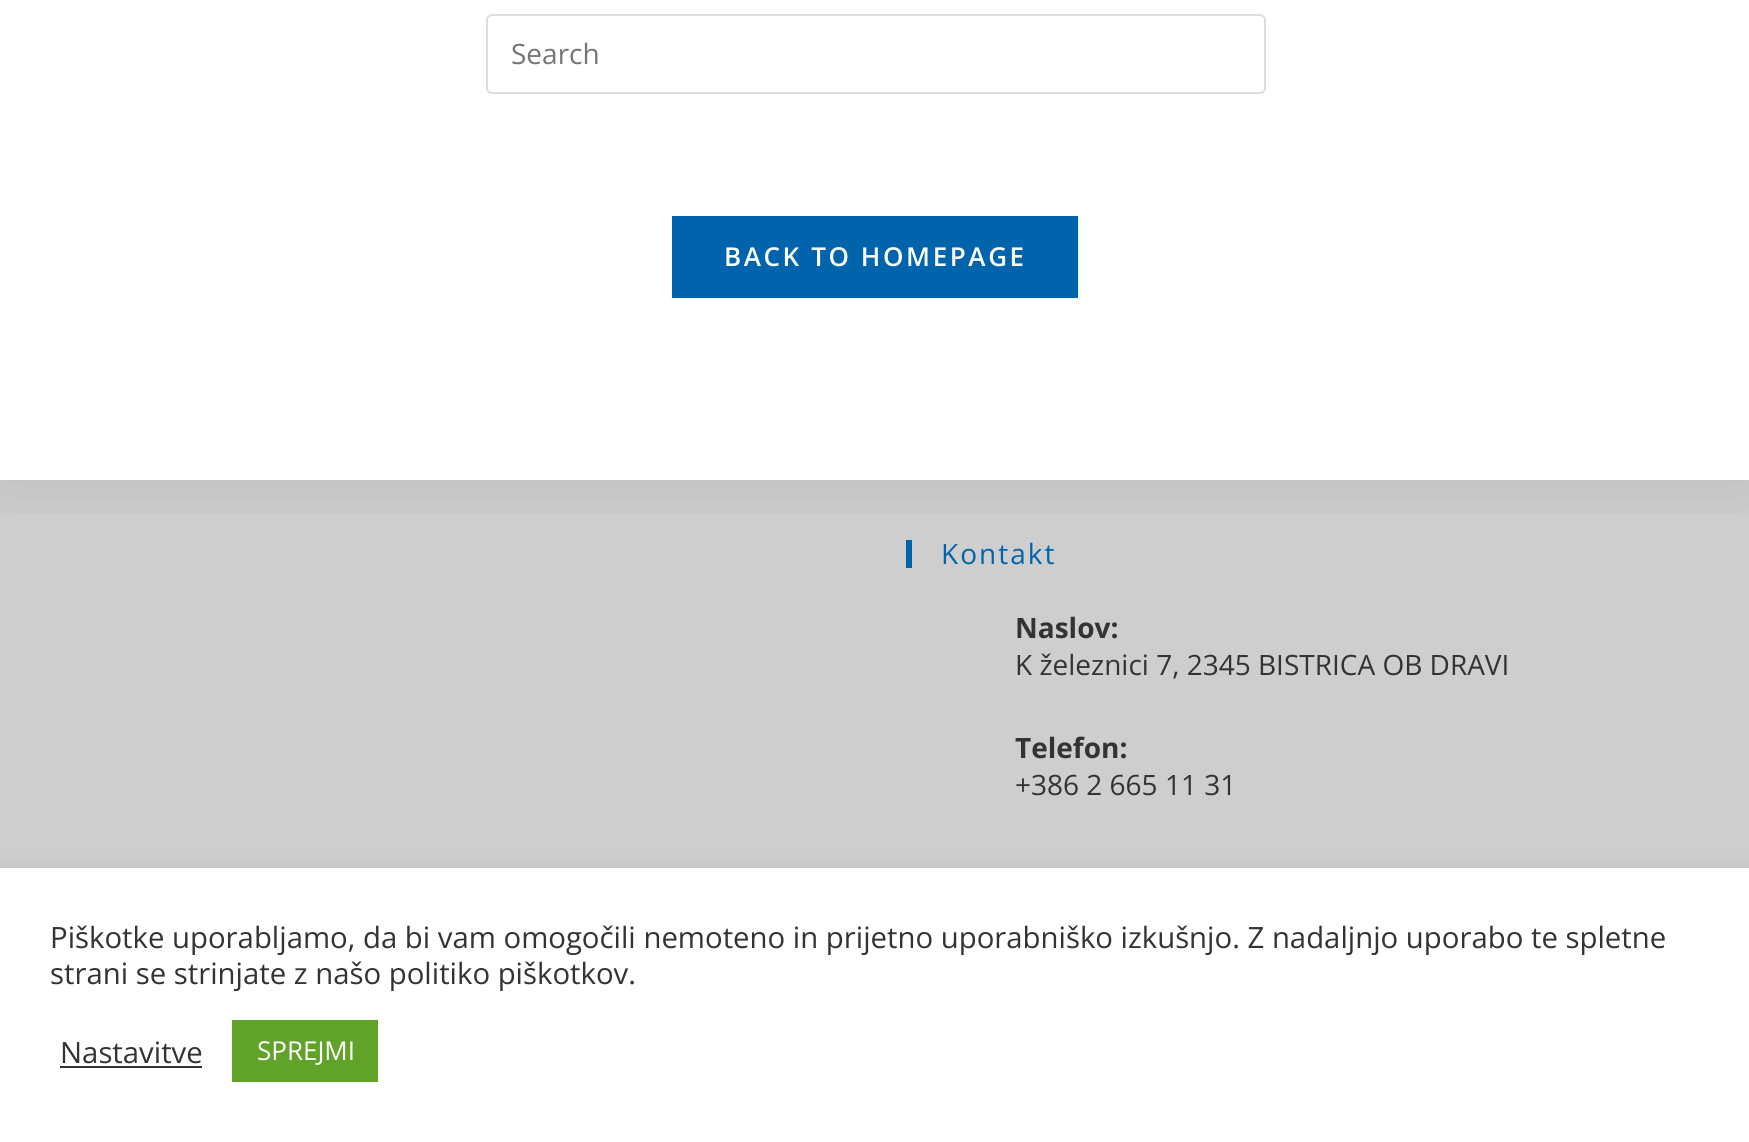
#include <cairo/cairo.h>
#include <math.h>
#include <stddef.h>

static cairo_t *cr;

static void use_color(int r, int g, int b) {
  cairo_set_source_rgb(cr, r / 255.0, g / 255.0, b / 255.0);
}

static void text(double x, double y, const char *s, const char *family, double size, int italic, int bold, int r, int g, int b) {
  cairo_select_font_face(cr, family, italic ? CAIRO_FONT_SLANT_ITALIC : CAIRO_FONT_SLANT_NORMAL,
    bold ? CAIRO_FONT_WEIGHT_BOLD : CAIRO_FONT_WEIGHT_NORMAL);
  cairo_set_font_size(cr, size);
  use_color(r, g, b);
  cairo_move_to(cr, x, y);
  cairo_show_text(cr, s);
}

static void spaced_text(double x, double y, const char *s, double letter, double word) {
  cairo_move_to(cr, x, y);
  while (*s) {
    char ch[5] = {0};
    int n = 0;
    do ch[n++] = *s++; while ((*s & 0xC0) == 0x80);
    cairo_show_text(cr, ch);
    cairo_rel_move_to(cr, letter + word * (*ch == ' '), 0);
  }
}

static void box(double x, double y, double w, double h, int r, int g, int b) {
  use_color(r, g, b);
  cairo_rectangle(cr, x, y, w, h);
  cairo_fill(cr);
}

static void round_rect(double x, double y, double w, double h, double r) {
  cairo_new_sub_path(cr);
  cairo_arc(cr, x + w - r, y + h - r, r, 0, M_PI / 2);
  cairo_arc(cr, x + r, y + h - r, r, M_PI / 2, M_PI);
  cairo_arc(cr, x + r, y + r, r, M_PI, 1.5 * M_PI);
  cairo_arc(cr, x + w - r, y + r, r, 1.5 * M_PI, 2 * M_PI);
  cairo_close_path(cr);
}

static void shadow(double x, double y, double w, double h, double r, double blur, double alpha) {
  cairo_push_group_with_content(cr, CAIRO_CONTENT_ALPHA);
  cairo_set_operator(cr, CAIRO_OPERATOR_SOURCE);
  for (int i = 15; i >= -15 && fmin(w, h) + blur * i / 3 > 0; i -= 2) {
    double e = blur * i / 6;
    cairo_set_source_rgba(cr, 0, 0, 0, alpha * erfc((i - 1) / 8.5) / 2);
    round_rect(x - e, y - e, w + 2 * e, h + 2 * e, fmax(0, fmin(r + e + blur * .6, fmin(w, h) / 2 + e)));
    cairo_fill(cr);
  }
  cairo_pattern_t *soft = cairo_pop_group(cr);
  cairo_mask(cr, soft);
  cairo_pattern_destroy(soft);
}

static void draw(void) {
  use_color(255, 255, 255);
  cairo_paint(cr);
  box(0, 480, 1749, 388, 206, 206, 206);
  box(906, 540, 6, 28, 0, 100, 173);
  cairo_save(cr);
  cairo_rectangle(cr, 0, 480, 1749, 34);
  cairo_clip(cr);
  use_color(0, 0, 0);
  shadow(0, -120, 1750, 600, 0, 40, 0.1);
  cairo_restore(cr);
  round_rect(487, 15, 778, 78, 5);
  use_color(221, 221, 221);
  cairo_stroke(cr);
  box(672, 216, 406, 82, 0, 100, 173);
  use_color(172, 171, 171);
  shadow(0, 866, 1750, 274, 0, 10, 0.3);
  box(0, 868, 1749, 274, 255, 255, 255);
  box(60, 1066, 142, 2, 51, 51, 51);
  box(232, 1020, 146, 62, 97, 162, 41);
  text(511, 64, "Search", "Open Sans", 28, 0, 0, 117, 117, 117);
  cairo_select_font_face(cr, "Open Sans SemiBold", CAIRO_FONT_SLANT_NORMAL, CAIRO_FONT_WEIGHT_NORMAL);
  cairo_set_font_size(cr, 26);
  use_color(255, 255, 255);
  spaced_text(724, 266, "BACK TO HOMEPAGE", 2.6, 0);
  cairo_select_font_face(cr, "Open Sans", CAIRO_FONT_SLANT_NORMAL, CAIRO_FONT_WEIGHT_NORMAL);
  cairo_set_font_size(cr, 28);
  use_color(0, 100, 173);
  spaced_text(941, 564, "Kontakt", 2, 0);
  text(1015, 638, "Naslov:", "Open Sans", 28, 0, 1, 51, 51, 51);
  text(1015, 675, "K železnici 7, 2345 BISTRICA OB DRAVI", "Open Sans", 28, 0, 0, 51, 51, 51);
  text(1015, 758, "Telefon:", "Open Sans", 28, 0, 1, 51, 51, 51);
  text(1015, 795, "+386 2 665 11 31", "Open Sans", 28, 0, 0, 51, 51, 51);
  text(50, 948, "Piškotke uporabljamo, da bi vam omogočili nemoteno in prijetno uporabniško izkušnjo. Z nadaljnjo uporabo te spletne", "Open Sans", 29.33, 0, 0, 51, 51, 51);
  text(50, 984, "strani se strinjate z našo politiko piškotkov.", "Open Sans", 29.33, 0, 0, 51, 51, 51);
  text(60, 1063, "Nastavitve", "Open Sans", 29.33, 0, 0, 51, 51, 51);
  text(257, 1060, "SPREJMI", "Open Sans", 26, 0, 0, 255, 255, 255);
}

int main(void) {
  cairo_surface_t *surface = cairo_image_surface_create(CAIRO_FORMAT_RGB24, 1749, 1142);
  cr = cairo_create(surface);
  cairo_font_options_t *options = cairo_font_options_create();
  cairo_font_options_set_hint_metrics(options, CAIRO_HINT_METRICS_OFF);
  cairo_font_options_set_hint_style(options, CAIRO_HINT_STYLE_NONE);
  cairo_set_font_options(cr, options);
  cairo_set_miter_limit(cr, 4);
  draw();
  cairo_surface_write_to_png(surface, "out.png");
  cairo_font_options_destroy(options);
  cairo_destroy(cr);
  cairo_surface_destroy(surface);
  return 0;
}
